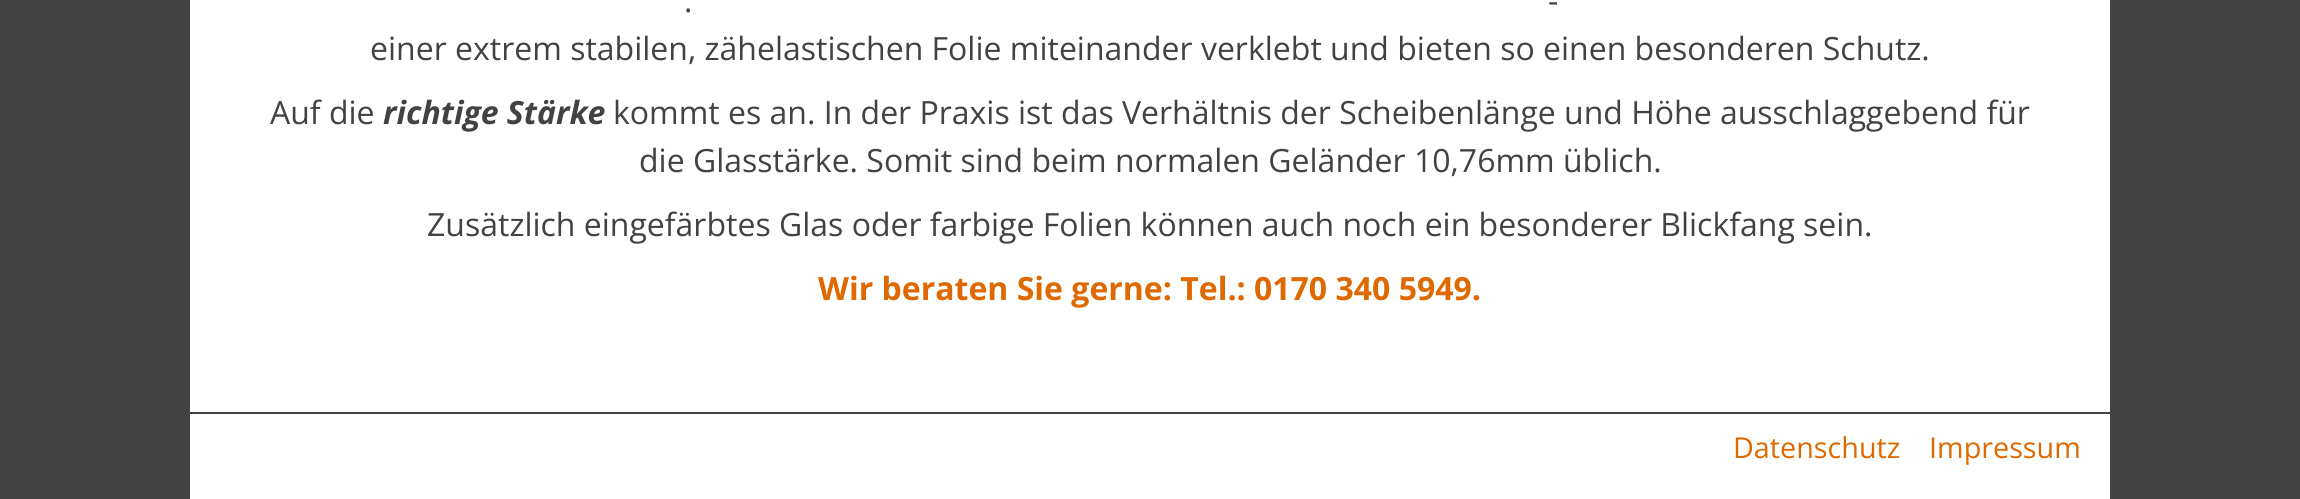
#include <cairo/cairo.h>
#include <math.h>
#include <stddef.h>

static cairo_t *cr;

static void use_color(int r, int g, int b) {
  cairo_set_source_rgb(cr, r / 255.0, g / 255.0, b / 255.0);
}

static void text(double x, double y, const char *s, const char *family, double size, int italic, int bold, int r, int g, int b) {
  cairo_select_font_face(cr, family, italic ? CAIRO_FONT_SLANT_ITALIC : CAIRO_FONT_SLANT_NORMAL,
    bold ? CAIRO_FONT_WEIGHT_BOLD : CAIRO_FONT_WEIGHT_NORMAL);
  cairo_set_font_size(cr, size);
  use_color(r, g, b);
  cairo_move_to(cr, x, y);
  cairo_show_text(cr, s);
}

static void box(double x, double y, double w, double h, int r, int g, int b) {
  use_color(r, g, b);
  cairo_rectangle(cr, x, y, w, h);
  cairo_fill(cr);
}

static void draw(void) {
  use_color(66, 66, 66);
  cairo_paint(cr);
  box(190, 0, 1920, 412, 255, 255, 255);
  box(190, 414, 1920, 85, 255, 255, 255);
  text(1548, 12, "-", "Open Sans", 32, 0, 0, 66, 66, 66);
  text(684, 12, ".", "Open Sans", 32, 0, 0, 66, 66, 66);
  text(370, 60, "einer extrem stabilen, zähelastischen Folie miteinander verklebt und bieten so einen besonderen Schutz.", "Open Sans", 32, 0, 0, 66, 66, 66);
  text(270, 124, "Auf die", "Open Sans", 32, 0, 0, 66, 66, 66);
  text(383, 124, "richtige Stärke", "Open Sans", 32, 1, 1, 66, 66, 66);
  text(613, 124, "kommt es an. In der Praxis ist das Verhältnis der Scheibenlänge und Höhe ausschlaggebend für", "Open Sans", 32, 0, 0, 66, 66, 66);
  text(639, 172, "die Glasstärke. Somit sind beim normalen Geländer 10,76mm üblich.", "Open Sans", 32, 0, 0, 66, 66, 66);
  text(427, 236, "Zusätzlich eingefärbtes Glas oder farbige Folien können auch noch ein besonderer Blickfang sein.", "Open Sans", 32, 0, 0, 66, 66, 66);
  text(818, 300, "Wir beraten Sie gerne: Tel.: 0170 340 5949.", "Open Sans", 32, 0, 1, 221, 105, 0);
  text(1733, 458, "Datenschutz", "Open Sans", 28.75, 0, 0, 221, 105, 0);
  text(1929, 458, "Impressum", "Open Sans", 28.75, 0, 0, 221, 105, 0);
}

int main(void) {
  cairo_surface_t *surface = cairo_image_surface_create(CAIRO_FORMAT_RGB24, 2300, 499);
  cr = cairo_create(surface);
  cairo_font_options_t *options = cairo_font_options_create();
  cairo_font_options_set_hint_metrics(options, CAIRO_HINT_METRICS_OFF);
  cairo_font_options_set_hint_style(options, CAIRO_HINT_STYLE_NONE);
  cairo_set_font_options(cr, options);
  cairo_set_miter_limit(cr, 4);
  draw();
  cairo_surface_write_to_png(surface, "out.png");
  cairo_font_options_destroy(options);
  cairo_destroy(cr);
  cairo_surface_destroy(surface);
  return 0;
}
